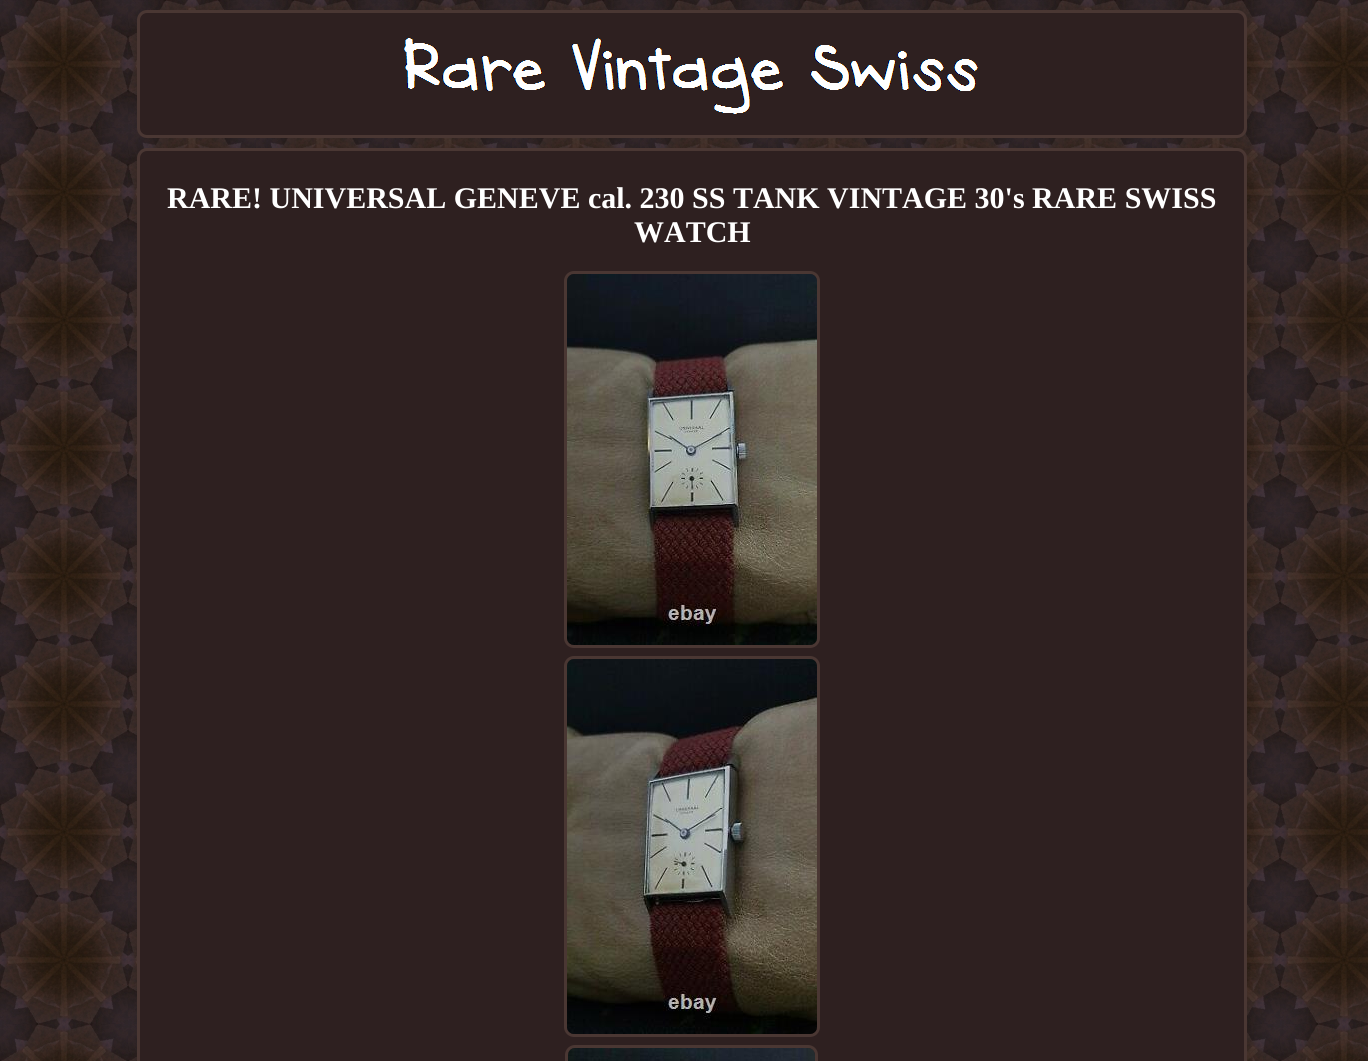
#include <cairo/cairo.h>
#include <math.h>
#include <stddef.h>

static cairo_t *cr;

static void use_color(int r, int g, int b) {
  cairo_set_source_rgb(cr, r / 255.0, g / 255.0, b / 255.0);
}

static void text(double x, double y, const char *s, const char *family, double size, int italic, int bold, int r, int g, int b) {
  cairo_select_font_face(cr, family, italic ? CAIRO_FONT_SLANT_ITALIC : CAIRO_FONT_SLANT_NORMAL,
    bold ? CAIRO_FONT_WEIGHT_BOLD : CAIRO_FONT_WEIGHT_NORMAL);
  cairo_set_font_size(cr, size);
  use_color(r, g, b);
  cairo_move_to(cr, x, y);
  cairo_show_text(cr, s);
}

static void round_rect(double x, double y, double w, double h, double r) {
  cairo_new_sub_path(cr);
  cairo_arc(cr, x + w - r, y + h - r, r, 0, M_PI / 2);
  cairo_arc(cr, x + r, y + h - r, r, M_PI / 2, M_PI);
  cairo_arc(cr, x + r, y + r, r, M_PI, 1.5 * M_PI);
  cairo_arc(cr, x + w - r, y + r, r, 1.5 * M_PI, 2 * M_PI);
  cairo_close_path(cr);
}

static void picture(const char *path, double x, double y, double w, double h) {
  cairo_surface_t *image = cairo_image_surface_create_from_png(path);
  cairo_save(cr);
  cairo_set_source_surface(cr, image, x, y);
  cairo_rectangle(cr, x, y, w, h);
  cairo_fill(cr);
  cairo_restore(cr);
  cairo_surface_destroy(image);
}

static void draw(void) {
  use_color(255, 255, 255);
  cairo_paint(cr);
  picture("img_01.png", 0, 0, 1368, 1061);
  use_color(46, 32, 32);
  round_rect(138.5, 11.5, 1107, 125, 8.5);
  cairo_fill_preserve(cr);
  use_color(74, 55, 51);
  cairo_set_line_width(cr, 3);
  cairo_stroke(cr);
  picture("img_02.png", 404, 38, 574, 76);
  use_color(46, 32, 32);
  round_rect(138.5, 149.5, 1107, 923, 8.5);
  cairo_fill_preserve(cr);
  use_color(74, 55, 51);
  cairo_stroke(cr);
  round_rect(565.5, 272.5, 253, 374, 8.5);
  cairo_stroke(cr);
  picture("img_03.png", 567, 274, 250, 371);
  round_rect(565.5, 657.5, 253, 378, 8.5);
  cairo_stroke(cr);
  picture("img_04.png", 567, 659, 250, 375);
  round_rect(566.5, 1046.5, 250, 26, 8.5);
  cairo_stroke(cr);
  picture("img_05.png", 568, 1048, 247, 13);
  text(167, 208, "RARE! UNIVERSAL GENEVE cal. 230 SS TANK VINTAGE 30's RARE SWISS", "Liberation Serif", 30, 0, 1, 255, 255, 255);
  text(634, 242, "WATCH", "Liberation Serif", 30, 0, 1, 255, 255, 255);
}

int main(void) {
  cairo_surface_t *surface = cairo_image_surface_create(CAIRO_FORMAT_RGB24, 1368, 1061);
  cr = cairo_create(surface);
  cairo_font_options_t *options = cairo_font_options_create();
  cairo_font_options_set_hint_metrics(options, CAIRO_HINT_METRICS_OFF);
  cairo_font_options_set_hint_style(options, CAIRO_HINT_STYLE_NONE);
  cairo_set_font_options(cr, options);
  cairo_set_miter_limit(cr, 4);
  draw();
  cairo_surface_write_to_png(surface, "out.png");
  cairo_font_options_destroy(options);
  cairo_destroy(cr);
  cairo_surface_destroy(surface);
  return 0;
}
